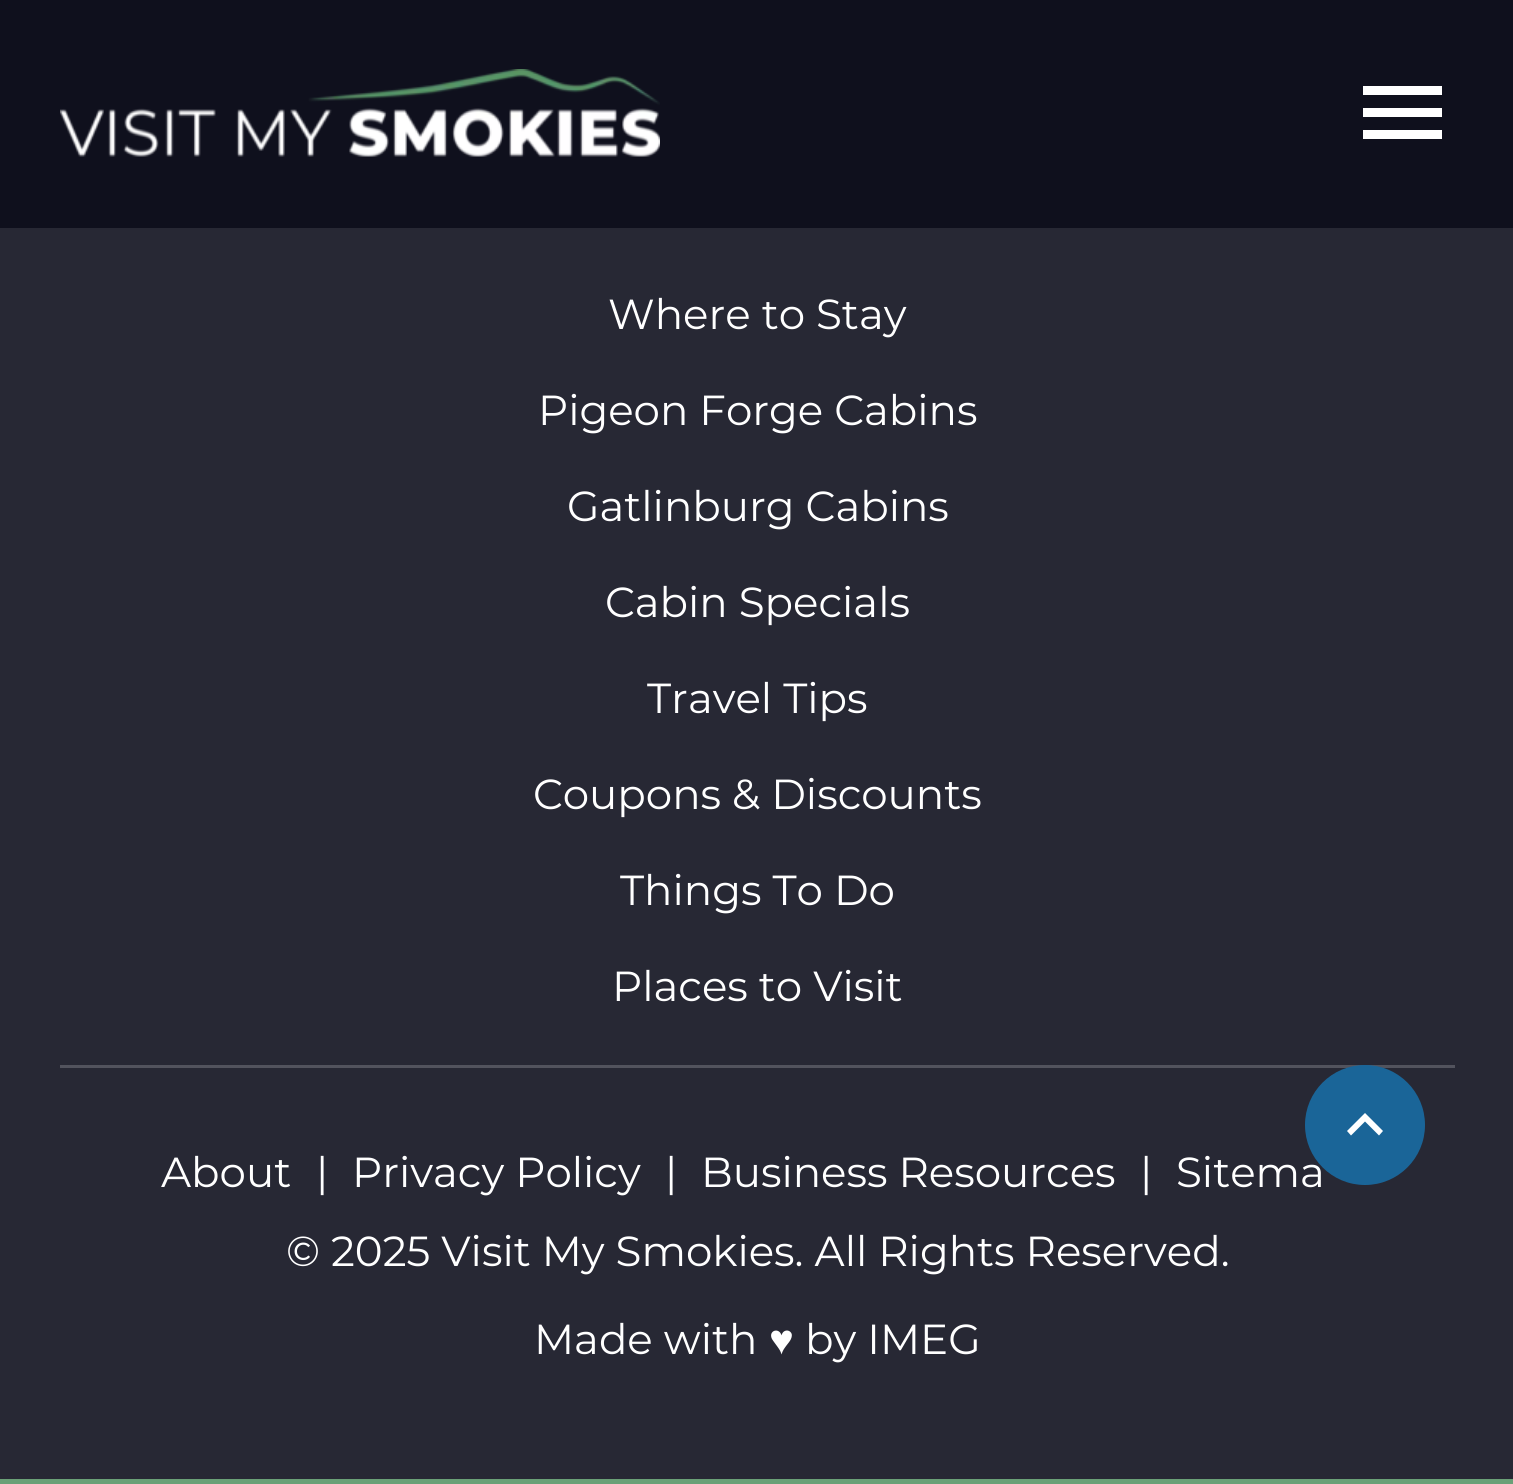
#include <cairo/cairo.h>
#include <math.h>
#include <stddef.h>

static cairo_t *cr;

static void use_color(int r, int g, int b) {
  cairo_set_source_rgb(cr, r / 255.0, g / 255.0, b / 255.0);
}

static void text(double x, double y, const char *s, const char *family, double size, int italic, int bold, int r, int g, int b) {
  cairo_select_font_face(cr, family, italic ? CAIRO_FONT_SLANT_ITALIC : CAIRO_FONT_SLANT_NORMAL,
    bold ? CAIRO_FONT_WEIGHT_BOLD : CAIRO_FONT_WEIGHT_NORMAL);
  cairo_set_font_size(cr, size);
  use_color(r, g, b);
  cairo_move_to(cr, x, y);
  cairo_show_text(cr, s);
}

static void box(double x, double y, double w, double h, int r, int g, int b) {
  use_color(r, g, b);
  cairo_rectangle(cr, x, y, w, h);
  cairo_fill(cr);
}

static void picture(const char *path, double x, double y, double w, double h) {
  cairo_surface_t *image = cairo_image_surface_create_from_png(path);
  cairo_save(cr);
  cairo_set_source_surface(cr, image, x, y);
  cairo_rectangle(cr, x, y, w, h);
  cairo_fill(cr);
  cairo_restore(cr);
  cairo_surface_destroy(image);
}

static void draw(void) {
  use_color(39, 40, 52);
  cairo_paint(cr);
  box(0, 0, 1513, 228, 15, 16, 29);
  picture("img_01.png", 60, 69, 600, 88);
  use_color(255, 255, 255);
  cairo_new_path(cr);
  cairo_move_to(cr, 1363, 86);
  cairo_line_to(cr, 1442, 86);
  cairo_line_to(cr, 1442, 95);
  cairo_line_to(cr, 1363, 95);
  cairo_close_path(cr);
  cairo_move_to(cr, 1363, 117);
  cairo_line_to(cr, 1363, 108);
  cairo_line_to(cr, 1442, 108);
  cairo_line_to(cr, 1442, 117);
  cairo_close_path(cr);
  cairo_move_to(cr, 1363, 139);
  cairo_line_to(cr, 1363, 130);
  cairo_line_to(cr, 1442, 130);
  cairo_line_to(cr, 1442, 139);
  cairo_close_path(cr);
  cairo_fill(cr);
  box(0, 1479, 1513, 5, 106, 160, 119);
  box(60, 1065, 1395, 3, 82, 83, 93);
  text(608, 329, "Where to Stay", "Montserrat", 42, 0, 0, 255, 255, 255);
  text(538, 425, "Pigeon Forge Cabins", "Montserrat", 42, 0, 0, 255, 255, 255);
  text(567, 521, "Gatlinburg Cabins", "Montserrat", 42, 0, 0, 255, 255, 255);
  text(605, 617, "Cabin Specials", "Montserrat", 42, 0, 0, 255, 255, 255);
  text(647, 713, "Travel Tips", "Montserrat", 42, 0, 0, 255, 255, 255);
  text(533, 809, "Coupons & Discounts", "Montserrat", 42, 0, 0, 255, 255, 255);
  text(620, 905, "Things To Do", "Montserrat", 42, 0, 0, 255, 255, 255);
  text(612, 1001, "Places to Visit", "Montserrat", 42, 0, 0, 255, 255, 255);
  text(161, 1187, "About", "Montserrat", 42, 0, 0, 255, 255, 255);
  text(316, 1187, "|", "Montserrat", 42, 0, 0, 255, 255, 255);
  text(352, 1187, "Privacy Policy", "Montserrat", 42, 0, 0, 255, 255, 255);
  text(665, 1187, "|", "Montserrat", 42, 0, 0, 255, 255, 255);
  text(701, 1187, "Business Resources", "Montserrat", 42, 0, 0, 255, 255, 255);
  text(1140, 1187, "|", "Montserrat", 42, 0, 0, 255, 255, 255);
  text(1176, 1187, "Sitema", "Montserrat", 42, 0, 0, 255, 255, 255);
  text(286, 1266, "© 2025 Visit My Smokies. All Rights Reserved.", "Montserrat", 42, 0, 0, 255, 255, 255);
  text(534, 1354, "Made with", "Montserrat", 42, 0, 0, 255, 255, 255);
  text(769, 1354, "♥", "Liberation Sans", 42, 0, 0, 255, 255, 255);
  text(805, 1354, "by IMEG", "Montserrat", 42, 0, 0, 255, 255, 255);
  use_color(26, 101, 152);
  cairo_new_path(cr);
  cairo_arc(cr, 1365, 1125, 60, 0, 2 * M_PI);
  cairo_fill(cr);
  use_color(255, 255, 255);
  cairo_new_path(cr);
  cairo_move_to(cr, 1365, 1113);
  cairo_line_to(cr, 1383, 1131);
  cairo_line_to(cr, 1379, 1135.5);
  cairo_line_to(cr, 1365, 1121.5);
  cairo_line_to(cr, 1351, 1135.5);
  cairo_line_to(cr, 1347, 1131);
  cairo_close_path(cr);
  cairo_fill(cr);
}

int main(void) {
  cairo_surface_t *surface = cairo_image_surface_create(CAIRO_FORMAT_RGB24, 1513, 1484);
  cr = cairo_create(surface);
  cairo_font_options_t *options = cairo_font_options_create();
  cairo_font_options_set_hint_metrics(options, CAIRO_HINT_METRICS_OFF);
  cairo_font_options_set_hint_style(options, CAIRO_HINT_STYLE_NONE);
  cairo_set_font_options(cr, options);
  cairo_set_miter_limit(cr, 4);
  draw();
  cairo_surface_write_to_png(surface, "out.png");
  cairo_font_options_destroy(options);
  cairo_destroy(cr);
  cairo_surface_destroy(surface);
  return 0;
}
